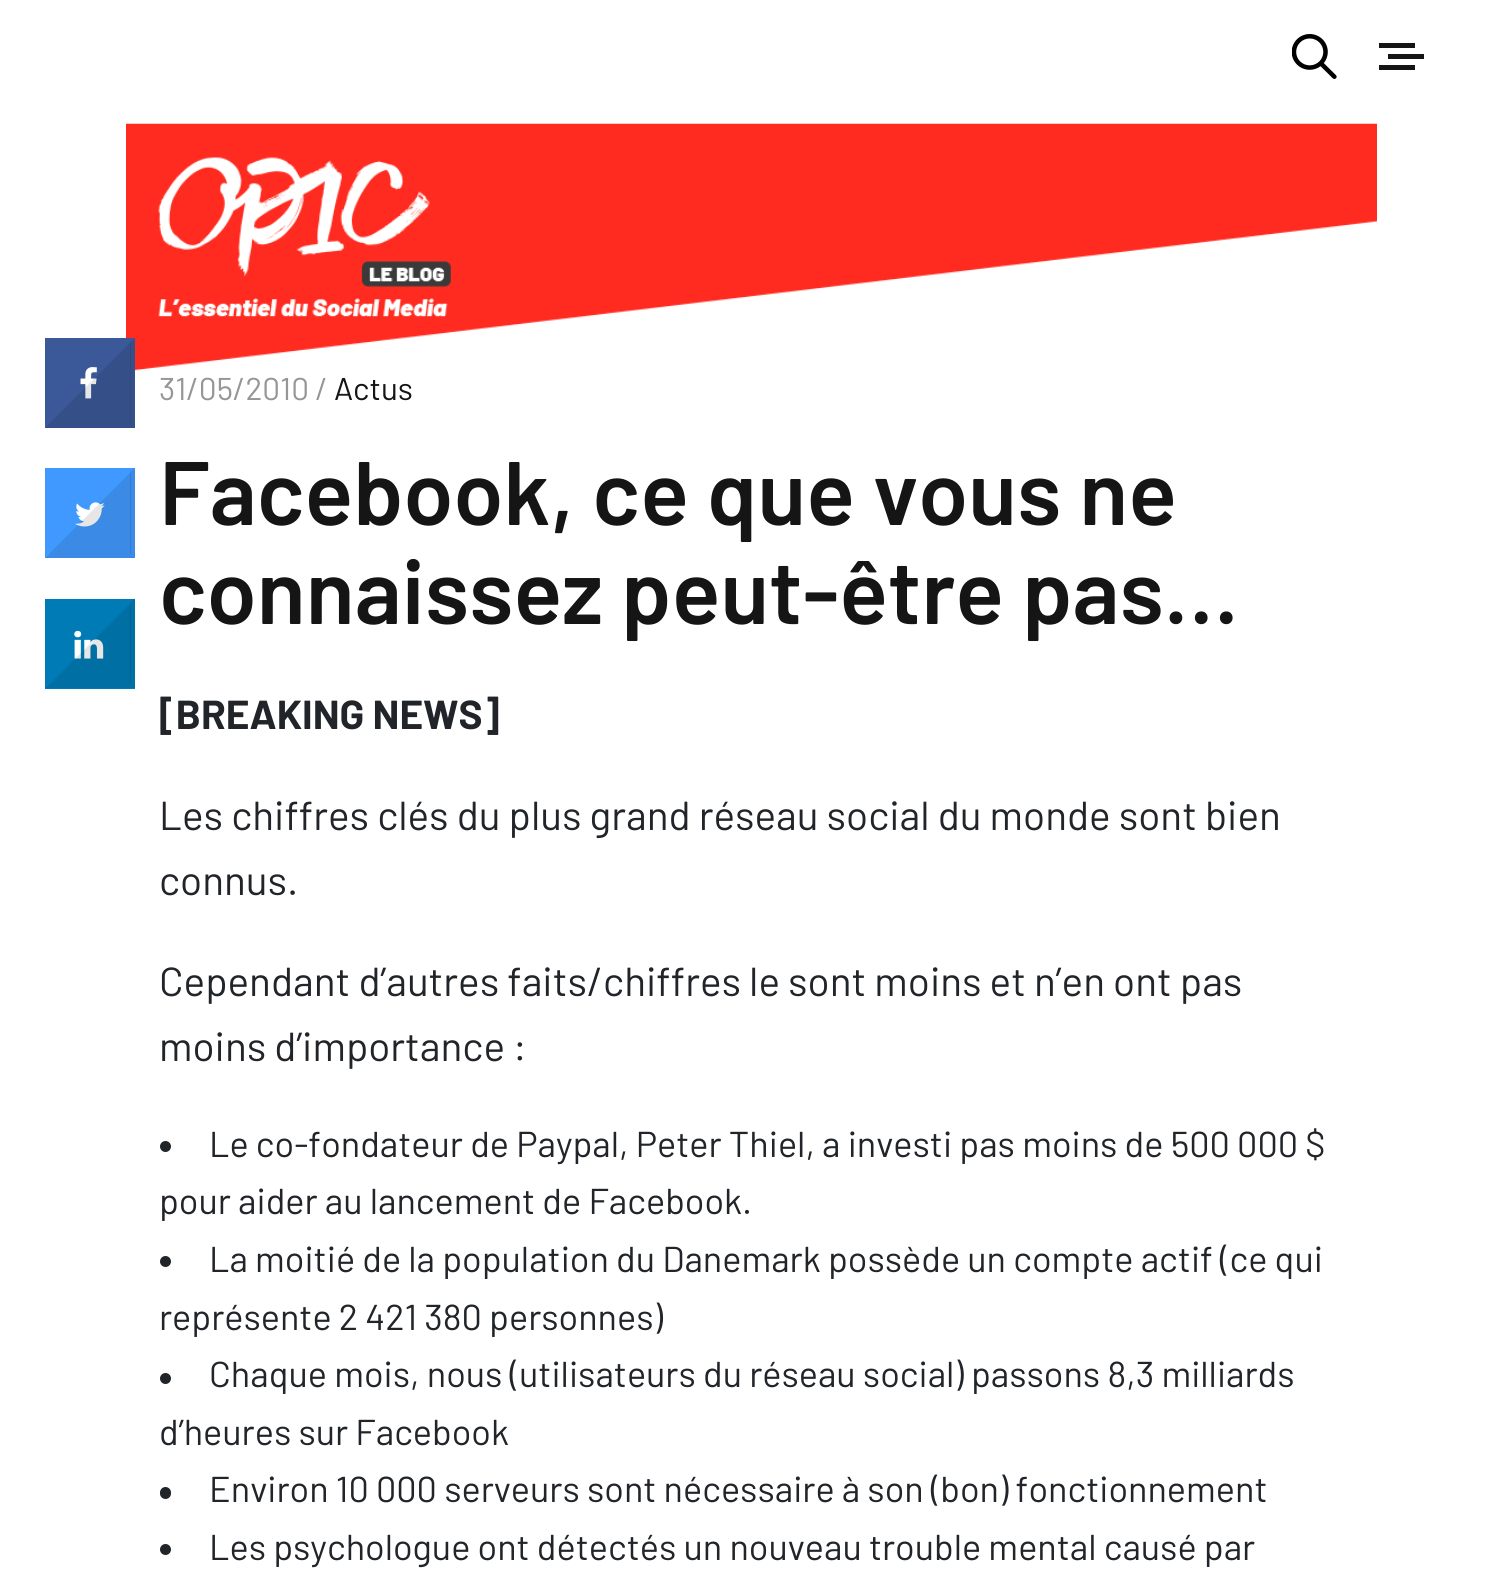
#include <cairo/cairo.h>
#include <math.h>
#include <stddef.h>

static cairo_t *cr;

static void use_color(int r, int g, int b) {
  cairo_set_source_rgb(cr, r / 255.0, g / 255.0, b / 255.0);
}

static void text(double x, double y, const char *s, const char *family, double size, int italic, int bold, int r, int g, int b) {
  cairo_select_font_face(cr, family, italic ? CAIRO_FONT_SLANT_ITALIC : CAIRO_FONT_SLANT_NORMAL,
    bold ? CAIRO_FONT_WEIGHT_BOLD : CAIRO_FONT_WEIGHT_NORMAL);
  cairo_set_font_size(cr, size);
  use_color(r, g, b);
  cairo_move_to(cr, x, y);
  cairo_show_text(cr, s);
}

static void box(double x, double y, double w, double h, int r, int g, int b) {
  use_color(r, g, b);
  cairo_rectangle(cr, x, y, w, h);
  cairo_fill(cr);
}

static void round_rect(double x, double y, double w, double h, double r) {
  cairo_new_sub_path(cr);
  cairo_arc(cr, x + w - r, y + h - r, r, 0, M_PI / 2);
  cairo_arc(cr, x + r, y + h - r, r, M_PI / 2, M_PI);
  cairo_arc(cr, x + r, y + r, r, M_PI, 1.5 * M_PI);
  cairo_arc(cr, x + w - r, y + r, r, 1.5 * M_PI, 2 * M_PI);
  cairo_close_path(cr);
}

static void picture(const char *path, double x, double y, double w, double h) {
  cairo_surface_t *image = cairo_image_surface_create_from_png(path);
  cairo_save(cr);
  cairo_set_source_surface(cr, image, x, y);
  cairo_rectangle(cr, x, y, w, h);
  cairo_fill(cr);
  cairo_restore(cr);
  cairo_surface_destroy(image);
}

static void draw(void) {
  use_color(255, 255, 255);
  cairo_paint(cr);
  picture("img_05.png", 126, 123, 1251, 248);
  box(45, 338, 90, 90, 59, 89, 152);
  use_color(53, 80, 137);
  cairo_new_path(cr);
  cairo_move_to(cr, 135, 338);
  cairo_line_to(cr, 135, 428);
  cairo_line_to(cr, 130, 423);
  cairo_line_to(cr, 130, 342);
  cairo_close_path(cr);
  cairo_fill(cr);
  cairo_set_source_rgba(cr, 0, 0, 0, 0.1);
  cairo_new_path(cr);
  cairo_move_to(cr, 135, 428);
  cairo_line_to(cr, 45, 428);
  cairo_line_to(cr, 50, 423);
  cairo_line_to(cr, 130, 423);
  cairo_close_path(cr);
  cairo_fill(cr);
  picture("img_01.png", 80, 367, 17, 32);
  cairo_save(cr);
  cairo_rectangle(cr, 50, 342, 81, 81);
  cairo_clip(cr);
  cairo_new_path(cr);
  cairo_move_to(cr, 135, 338);
  cairo_line_to(cr, 179, 382);
  cairo_line_to(cr, 90, 471);
  cairo_line_to(cr, 46, 427);
  cairo_close_path(cr);
  cairo_fill(cr);
  cairo_restore(cr);
  box(45, 468, 90, 90, 64, 153, 255);
  use_color(58, 138, 230);
  cairo_new_path(cr);
  cairo_move_to(cr, 135, 468);
  cairo_line_to(cr, 135, 558);
  cairo_line_to(cr, 130, 554);
  cairo_line_to(cr, 130, 472);
  cairo_close_path(cr);
  cairo_fill(cr);
  cairo_set_source_rgba(cr, 0, 0, 0, 0.1);
  cairo_new_path(cr);
  cairo_move_to(cr, 135, 558);
  cairo_line_to(cr, 45, 558);
  cairo_line_to(cr, 50, 554);
  cairo_line_to(cr, 130, 554);
  cairo_close_path(cr);
  cairo_fill(cr);
  picture("img_02.png", 75, 502, 30, 25);
  cairo_save(cr);
  cairo_rectangle(cr, 50, 473, 81, 81);
  cairo_clip(cr);
  cairo_new_path(cr);
  cairo_move_to(cr, 135, 468);
  cairo_line_to(cr, 179, 513);
  cairo_line_to(cr, 90, 602);
  cairo_line_to(cr, 46, 557);
  cairo_close_path(cr);
  cairo_fill(cr);
  cairo_restore(cr);
  box(45, 599, 90, 90, 0, 123, 182);
  cairo_set_source_rgba(cr, 0, 0, 0, 0.1);
  cairo_new_path(cr);
  cairo_move_to(cr, 135, 598);
  cairo_line_to(cr, 135, 688);
  cairo_line_to(cr, 130, 684);
  cairo_line_to(cr, 130, 603);
  cairo_close_path(cr);
  cairo_fill(cr);
  cairo_new_path(cr);
  cairo_move_to(cr, 135, 688);
  cairo_line_to(cr, 45, 688);
  cairo_line_to(cr, 50, 684);
  cairo_line_to(cr, 130, 684);
  cairo_close_path(cr);
  cairo_fill(cr);
  picture("img_03.png", 74, 630, 30, 29);
  cairo_save(cr);
  cairo_rectangle(cr, 50, 603, 81, 81);
  cairo_clip(cr);
  cairo_new_path(cr);
  cairo_move_to(cr, 135, 599);
  cairo_line_to(cr, 179, 643);
  cairo_line_to(cr, 90, 732);
  cairo_line_to(cr, 46, 688);
  cairo_close_path(cr);
  cairo_fill(cr);
  cairo_restore(cr);
  picture("img_04.png", 1292, 34, 45, 45);
  box(1379, 43, 36, 5, 21, 21, 21);
  box(1388, 54, 36, 5, 21, 21, 21);
  box(1379, 65, 36, 5, 21, 21, 21);
  use_color(33, 37, 41);
  cairo_arc(cr, 165.5, 1146.5, 5.5, 0, 2 * M_PI);
  cairo_fill(cr);
  cairo_arc(cr, 165.5, 1261.5, 5.5, 0, 2 * M_PI);
  cairo_fill(cr);
  cairo_arc(cr, 165.5, 1378.5, 5.5, 0, 2 * M_PI);
  cairo_fill(cr);
  round_rect(160, 1487, 11, 12, 5.5);
  cairo_fill(cr);
  cairo_arc(cr, 165.5, 1549.5, 5.5, 0, 2 * M_PI);
  cairo_fill(cr);
  text(159, 400, "31/05/2010 /", "Barlow", 31.5, 0, 0, 150, 150, 150);
  text(334, 400, "Actus", "Barlow", 31.5, 0, 0, 21, 21, 21);
  text(159, 525, "Facebook, ce que vous ne", "Barlow SemiBold", 90, 0, 0, 21, 21, 21);
  text(159, 624, "connaissez peut-être pas…", "Barlow SemiBold", 90, 0, 0, 21, 21, 21);
  text(159, 729, "[BREAKING NEWS]", "Barlow", 40.5, 0, 1, 33, 37, 41);
  text(159, 830, "Les chiffres clés du plus grand réseau social du monde sont bien", "Barlow", 40.5, 0, 0, 33, 37, 41);
  text(159, 895, "connus.", "Barlow", 40.5, 0, 0, 33, 37, 41);
  text(159, 996, "Cependant d’autres faits/chiffres le sont moins et n’en ont pas", "Barlow", 40.5, 0, 0, 33, 37, 41);
  text(159, 1061, "moins d’importance :", "Barlow", 40.5, 0, 0, 33, 37, 41);
  text(209, 1157, "Le co-fondateur de Paypal, Peter Thiel, a investi pas moins de 500 000 $", "Barlow", 36, 0, 0, 33, 37, 41);
  text(159, 1214, "pour aider au lancement de Facebook.", "Barlow", 36, 0, 0, 33, 37, 41);
  text(209, 1272, "La moitié de la population du Danemark possède un compte actif (ce qui", "Barlow", 36, 0, 0, 33, 37, 41);
  text(159, 1330, "représente 2 421 380 personnes)", "Barlow", 36, 0, 0, 33, 37, 41);
  text(209, 1387, "Chaque mois, nous (utilisateurs du réseau social) passons 8,3 milliards", "Barlow", 36, 0, 0, 33, 37, 41);
  text(159, 1445, "d’heures sur Facebook", "Barlow", 36, 0, 0, 33, 37, 41);
  text(209, 1502, "Environ 10 000 serveurs sont nécessaire à son (bon) fonctionnement", "Barlow", 36, 0, 0, 33, 37, 41);
  text(209, 1560, "Les psychologue ont détectés un nouveau trouble mental causé par", "Barlow", 36, 0, 0, 33, 37, 41);
}

int main(void) {
  cairo_surface_t *surface = cairo_image_surface_create(CAIRO_FORMAT_RGB24, 1501, 1594);
  cr = cairo_create(surface);
  cairo_font_options_t *options = cairo_font_options_create();
  cairo_font_options_set_hint_metrics(options, CAIRO_HINT_METRICS_OFF);
  cairo_font_options_set_hint_style(options, CAIRO_HINT_STYLE_NONE);
  cairo_set_font_options(cr, options);
  cairo_set_miter_limit(cr, 4);
  draw();
  cairo_surface_write_to_png(surface, "out.png");
  cairo_font_options_destroy(options);
  cairo_destroy(cr);
  cairo_surface_destroy(surface);
  return 0;
}
